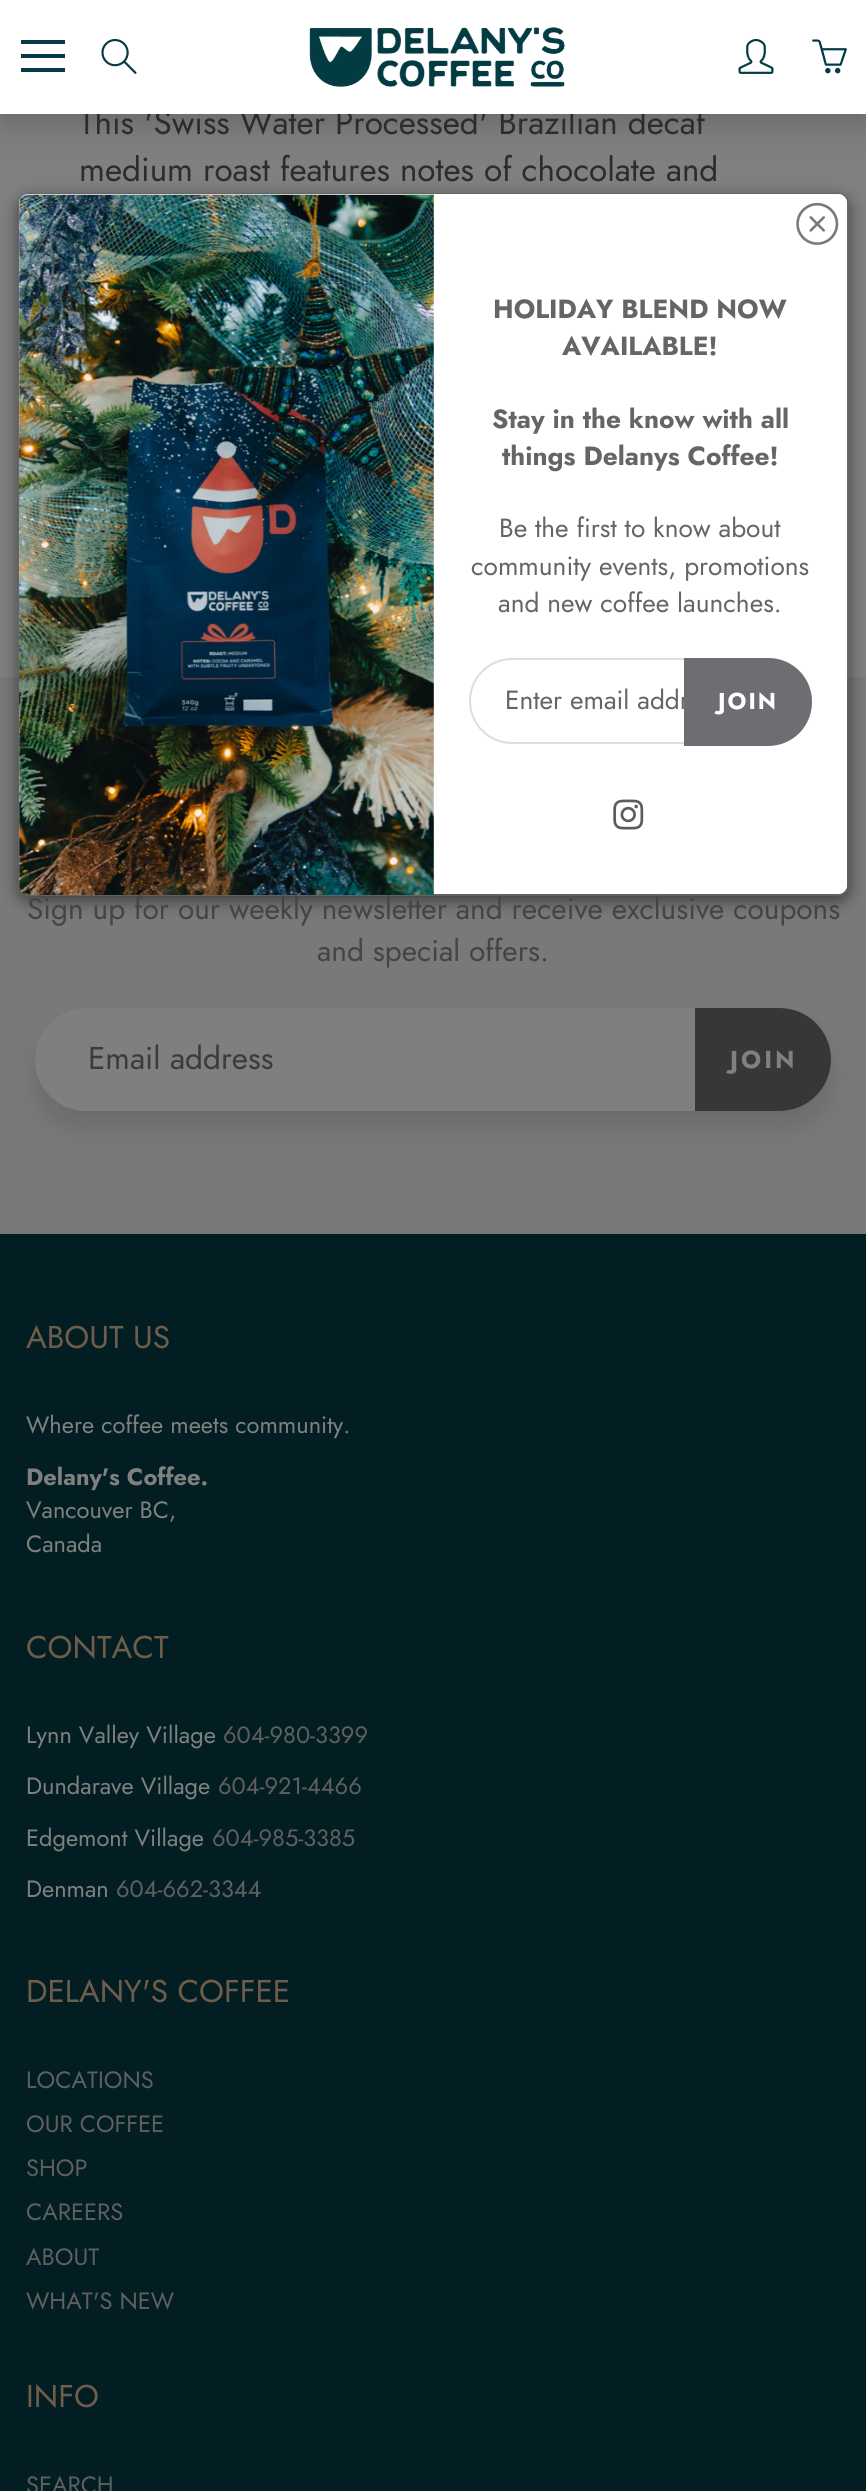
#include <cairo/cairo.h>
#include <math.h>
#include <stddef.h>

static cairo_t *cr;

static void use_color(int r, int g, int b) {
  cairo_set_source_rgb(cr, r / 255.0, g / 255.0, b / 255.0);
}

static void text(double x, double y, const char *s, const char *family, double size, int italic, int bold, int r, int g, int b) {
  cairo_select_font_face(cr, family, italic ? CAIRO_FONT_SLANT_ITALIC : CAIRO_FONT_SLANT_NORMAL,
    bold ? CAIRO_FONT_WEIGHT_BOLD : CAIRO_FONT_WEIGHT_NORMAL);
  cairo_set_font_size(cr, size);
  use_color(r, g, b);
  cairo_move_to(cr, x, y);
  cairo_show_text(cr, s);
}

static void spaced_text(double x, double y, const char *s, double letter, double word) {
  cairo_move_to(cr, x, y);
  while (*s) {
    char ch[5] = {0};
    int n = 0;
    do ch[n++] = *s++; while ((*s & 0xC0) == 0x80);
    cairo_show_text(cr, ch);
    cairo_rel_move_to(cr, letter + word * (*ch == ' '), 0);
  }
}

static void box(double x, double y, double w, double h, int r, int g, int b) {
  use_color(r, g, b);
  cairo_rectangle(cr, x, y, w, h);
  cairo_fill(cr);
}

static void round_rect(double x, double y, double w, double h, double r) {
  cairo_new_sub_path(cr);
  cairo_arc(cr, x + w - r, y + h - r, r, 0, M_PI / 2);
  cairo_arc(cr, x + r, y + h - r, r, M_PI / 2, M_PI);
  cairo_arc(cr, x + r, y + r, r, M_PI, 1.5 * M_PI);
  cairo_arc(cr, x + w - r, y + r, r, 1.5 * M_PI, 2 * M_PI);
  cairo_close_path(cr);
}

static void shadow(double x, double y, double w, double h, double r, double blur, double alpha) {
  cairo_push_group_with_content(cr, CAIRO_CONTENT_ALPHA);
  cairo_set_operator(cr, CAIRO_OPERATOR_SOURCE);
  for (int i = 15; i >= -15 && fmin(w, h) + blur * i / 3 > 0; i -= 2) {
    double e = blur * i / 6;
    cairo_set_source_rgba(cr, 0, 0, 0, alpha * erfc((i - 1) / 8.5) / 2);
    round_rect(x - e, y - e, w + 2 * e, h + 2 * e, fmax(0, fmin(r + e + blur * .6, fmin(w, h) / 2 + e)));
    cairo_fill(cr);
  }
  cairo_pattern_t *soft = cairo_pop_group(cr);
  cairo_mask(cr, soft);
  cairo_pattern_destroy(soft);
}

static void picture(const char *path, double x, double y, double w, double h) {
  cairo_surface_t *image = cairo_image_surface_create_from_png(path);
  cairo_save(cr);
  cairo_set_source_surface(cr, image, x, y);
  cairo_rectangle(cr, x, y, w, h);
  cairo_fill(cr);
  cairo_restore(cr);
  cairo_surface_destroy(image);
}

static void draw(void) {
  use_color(128, 128, 128);
  cairo_paint(cr);
  use_color(0, 0, 0);
  shadow(0, 9, 866, 114, 0, 17.5, 0.2);
  box(0, 677, 866, 557, 121, 121, 121);
  cairo_save(cr);
  cairo_set_fill_rule(cr, CAIRO_FILL_RULE_EVEN_ODD);
  cairo_new_path(cr);
  cairo_move_to(cr, 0, 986);
  cairo_line_to(cr, 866, 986);
  cairo_line_to(cr, 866, 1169);
  cairo_line_to(cr, 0, 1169);
  cairo_close_path(cr);
  cairo_move_to(cr, 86.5, 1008);
  cairo_line_to(cr, 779.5, 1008);
  cairo_curve_to(cr, 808, 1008, 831, 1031, 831, 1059.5);
  cairo_curve_to(cr, 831, 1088, 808, 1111, 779.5, 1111);
  cairo_line_to(cr, 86.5, 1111);
  cairo_curve_to(cr, 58, 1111, 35, 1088, 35, 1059.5);
  cairo_curve_to(cr, 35, 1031, 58, 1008, 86.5, 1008);
  cairo_close_path(cr);
  cairo_clip(cr);
  use_color(0, 0, 0);
  shadow(35, 1026, 796, 103, 51.5, 13, 0.12);
  cairo_restore(cr);
  cairo_set_source_rgba(cr, 0.502, 0.502, 0.502, 0.9);
  round_rect(35, 1008, 796, 103, 51.5);
  cairo_fill(cr);
  use_color(55, 55, 57);
  cairo_new_path(cr);
  cairo_move_to(cr, 695, 1008);
  cairo_line_to(cr, 779.5, 1008);
  cairo_curve_to(cr, 808, 1008, 831, 1031, 831, 1059.5);
  cairo_curve_to(cr, 831, 1088, 808, 1111, 779.5, 1111);
  cairo_line_to(cr, 695, 1111);
  cairo_close_path(cr);
  cairo_fill(cr);
  box(0, 1234, 866, 1257, 2, 30, 34);
  cairo_save(cr);
  cairo_set_fill_rule(cr, CAIRO_FILL_RULE_EVEN_ODD);
  cairo_new_path(cr);
  cairo_move_to(cr, 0, 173);
  cairo_line_to(cr, 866, 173);
  cairo_line_to(cr, 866, 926);
  cairo_line_to(cr, 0, 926);
  cairo_close_path(cr);
  cairo_move_to(cr, 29, 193);
  cairo_line_to(cr, 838, 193);
  cairo_curve_to(cr, 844, 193, 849, 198, 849, 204);
  cairo_line_to(cr, 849, 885);
  cairo_curve_to(cr, 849, 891, 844, 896, 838, 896);
  cairo_line_to(cr, 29, 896);
  cairo_curve_to(cr, 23, 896, 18, 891, 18, 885);
  cairo_line_to(cr, 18, 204);
  cairo_curve_to(cr, 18, 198, 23, 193, 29, 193);
  cairo_close_path(cr);
  cairo_clip(cr);
  use_color(0, 0, 0);
  shadow(18, 198, 831, 703, 11, 8, 0.5);
  cairo_restore(cr);
  use_color(255, 255, 255);
  round_rect(19, 194, 828, 700, 9);
  cairo_fill(cr);
  text(79, 134, "This 'Swiss Water Processed' Brazilian decaf", "Jost", 33.25, 0, 0, 44, 44, 44);
  box(0, 0, 866, 114, 255, 255, 255);
  picture("img_04.png", 812, 39, 35, 35);
  box(21, 40, 44, 4, 3, 59, 68);
  box(21, 68, 44, 4, 3, 59, 68);
  box(21, 54, 44, 4, 3, 59, 68);
  picture("img_03.png", 738, 39, 36, 35);
  picture("img_02.png", 309, 27, 256, 60);
  picture("img_01.png", 101, 38, 36, 36);
  text(79, 181, "medium roast features notes of chocolate and", "Jost", 33.25, 0, 0, 44, 44, 44);
  text(27, 919, "Sign up for our weekly newsletter and receive exclusive coupons", "Jost", 29.75, 0, 0, 69, 68, 68);
  text(317, 961, "and special offers.", "Jost", 29.75, 0, 0, 69, 68, 68);
  text(88, 1069, "Email address", "Jost", 31.5, 0, 0, 59, 59, 59);
  cairo_select_font_face(cr, "Jost", CAIRO_FONT_SLANT_NORMAL, CAIRO_FONT_WEIGHT_BOLD);
  cairo_set_font_size(cr, 24.5);
  use_color(128, 128, 128);
  spaced_text(730, 1068, "JOIN", 3, 0);
  text(26, 1348, "ABOUT US", "Jost", 31.5, 0, 0, 110, 93, 74);
  text(26, 1433, "Where coffee meets community.", "Jost", 23.6, 0, 0, 128, 128, 128);
  text(26, 1485, "Delany's Coffee.", "Jost", 23.6, 0, 1, 128, 128, 128);
  text(26, 1518, "Vancouver BC,", "Jost", 23.6, 0, 0, 128, 128, 128);
  text(26, 1552, "Canada", "Jost", 23.6, 0, 0, 128, 128, 128);
  text(26, 1658, "CONTACT", "Jost", 31.5, 0, 0, 110, 93, 74);
  text(26, 1743, "Lynn Valley Village", "Jost", 23.6, 0, 0, 128, 128, 128);
  text(223, 1743, "604-980-3399", "Jost", 23.6, 0, 0, 95, 95, 95);
  text(26, 1794, "Dundarave Village", "Jost", 23.6, 0, 0, 128, 128, 128);
  text(218, 1794, "604-921-4466", "Jost", 23.6, 0, 0, 95, 95, 95);
  text(26, 1846, "Edgemont Village", "Jost", 23.6, 0, 0, 128, 128, 128);
  text(212, 1846, "604-985-3385", "Jost", 23.6, 0, 0, 95, 95, 95);
  text(26, 1897, "Denman", "Jost", 23.6, 0, 0, 128, 128, 128);
  text(116, 1897, "604-662-3344", "Jost", 23.6, 0, 0, 95, 95, 95);
  text(26, 2002, "DELANY'S COFFEE", "Jost", 31.5, 0, 0, 110, 93, 74);
  text(26, 2088, "LOCATIONS", "Jost", 23.6, 0, 0, 95, 95, 95);
  text(26, 2132, "OUR COFFEE", "Jost", 23.6, 0, 0, 95, 95, 95);
  text(26, 2176, "SHOP", "Jost", 23.6, 0, 0, 95, 95, 95);
  text(26, 2220, "CAREERS", "Jost", 23.6, 0, 0, 95, 95, 95);
  text(26, 2265, "ABOUT", "Jost", 23.6, 0, 0, 95, 95, 95);
  text(26, 2309, "WHAT'S NEW", "Jost", 23.6, 0, 0, 95, 95, 95);
  text(26, 2407, "INFO", "Jost", 31.5, 0, 0, 110, 93, 74);
  text(26, 2493, "SEARCH", "Jost", 23.6, 0, 0, 95, 95, 95);
  round_rect(19, 194, 829, 701, 10);
  cairo_set_source_rgba(cr, 0, 0, 0, 0.2);
  cairo_stroke(cr);
  picture("img_05.png", 19, 195, 415, 700);
  use_color(255, 255, 255);
  cairo_new_path(cr);
  cairo_move_to(cr, 434, 194);
  cairo_line_to(cr, 838, 194);
  cairo_curve_to(cr, 843, 194, 847, 198, 847, 203);
  cairo_line_to(cr, 847, 885);
  cairo_curve_to(cr, 847, 890, 843, 894, 838, 894);
  cairo_line_to(cr, 434, 894);
  cairo_close_path(cr);
  cairo_fill(cr);
  picture("img_06.png", 796, 202, 43, 43);
  text(493, 318, "HOLIDAY BLEND NOW", "Jost", 26.25, 0, 1, 102, 101, 101);
  text(562, 355, "AVAILABLE!", "Jost", 26.25, 0, 1, 102, 101, 101);
  text(492, 428, "Stay in the know with all", "Jost", 26.25, 0, 1, 102, 101, 101);
  text(502, 465, "things Delanys Coffee!", "Jost", 26.25, 0, 1, 102, 101, 101);
  text(499, 537, "Be the first to know about", "Jost", 26.25, 0, 0, 102, 101, 101);
  text(471, 575, "community events, promotions", "Jost", 26.25, 0, 0, 102, 101, 101);
  text(498, 612, "and new coffee launches.", "Jost", 26.25, 0, 0, 102, 101, 101);
  round_rect(470, 659, 341, 84, 42);
  use_color(221, 221, 221);
  cairo_stroke(cr);
  text(505, 709, "Enter email addr", "Jost", 26.25, 0, 0, 102, 101, 101);
  use_color(109, 110, 113);
  cairo_new_path(cr);
  cairo_move_to(cr, 684, 658);
  cairo_line_to(cr, 768, 658);
  cairo_curve_to(cr, 792.5, 658, 812, 677.5, 812, 702);
  cairo_curve_to(cr, 812, 726.5, 792.5, 746, 768, 746);
  cairo_line_to(cr, 684, 746);
  cairo_close_path(cr);
  cairo_fill(cr);
  cairo_select_font_face(cr, "Jost", CAIRO_FONT_SLANT_NORMAL, CAIRO_FONT_WEIGHT_BOLD);
  cairo_set_font_size(cr, 23);
  use_color(255, 255, 255);
  spaced_text(718, 709, "JOIN", 2, 0);
  picture("img_07.png", 613, 799, 31, 31);
}

int main(void) {
  cairo_surface_t *surface = cairo_image_surface_create(CAIRO_FORMAT_RGB24, 866, 2491);
  cr = cairo_create(surface);
  cairo_font_options_t *options = cairo_font_options_create();
  cairo_font_options_set_hint_metrics(options, CAIRO_HINT_METRICS_OFF);
  cairo_font_options_set_hint_style(options, CAIRO_HINT_STYLE_NONE);
  cairo_set_font_options(cr, options);
  cairo_set_miter_limit(cr, 4);
  draw();
  cairo_surface_write_to_png(surface, "out.png");
  cairo_font_options_destroy(options);
  cairo_destroy(cr);
  cairo_surface_destroy(surface);
  return 0;
}
